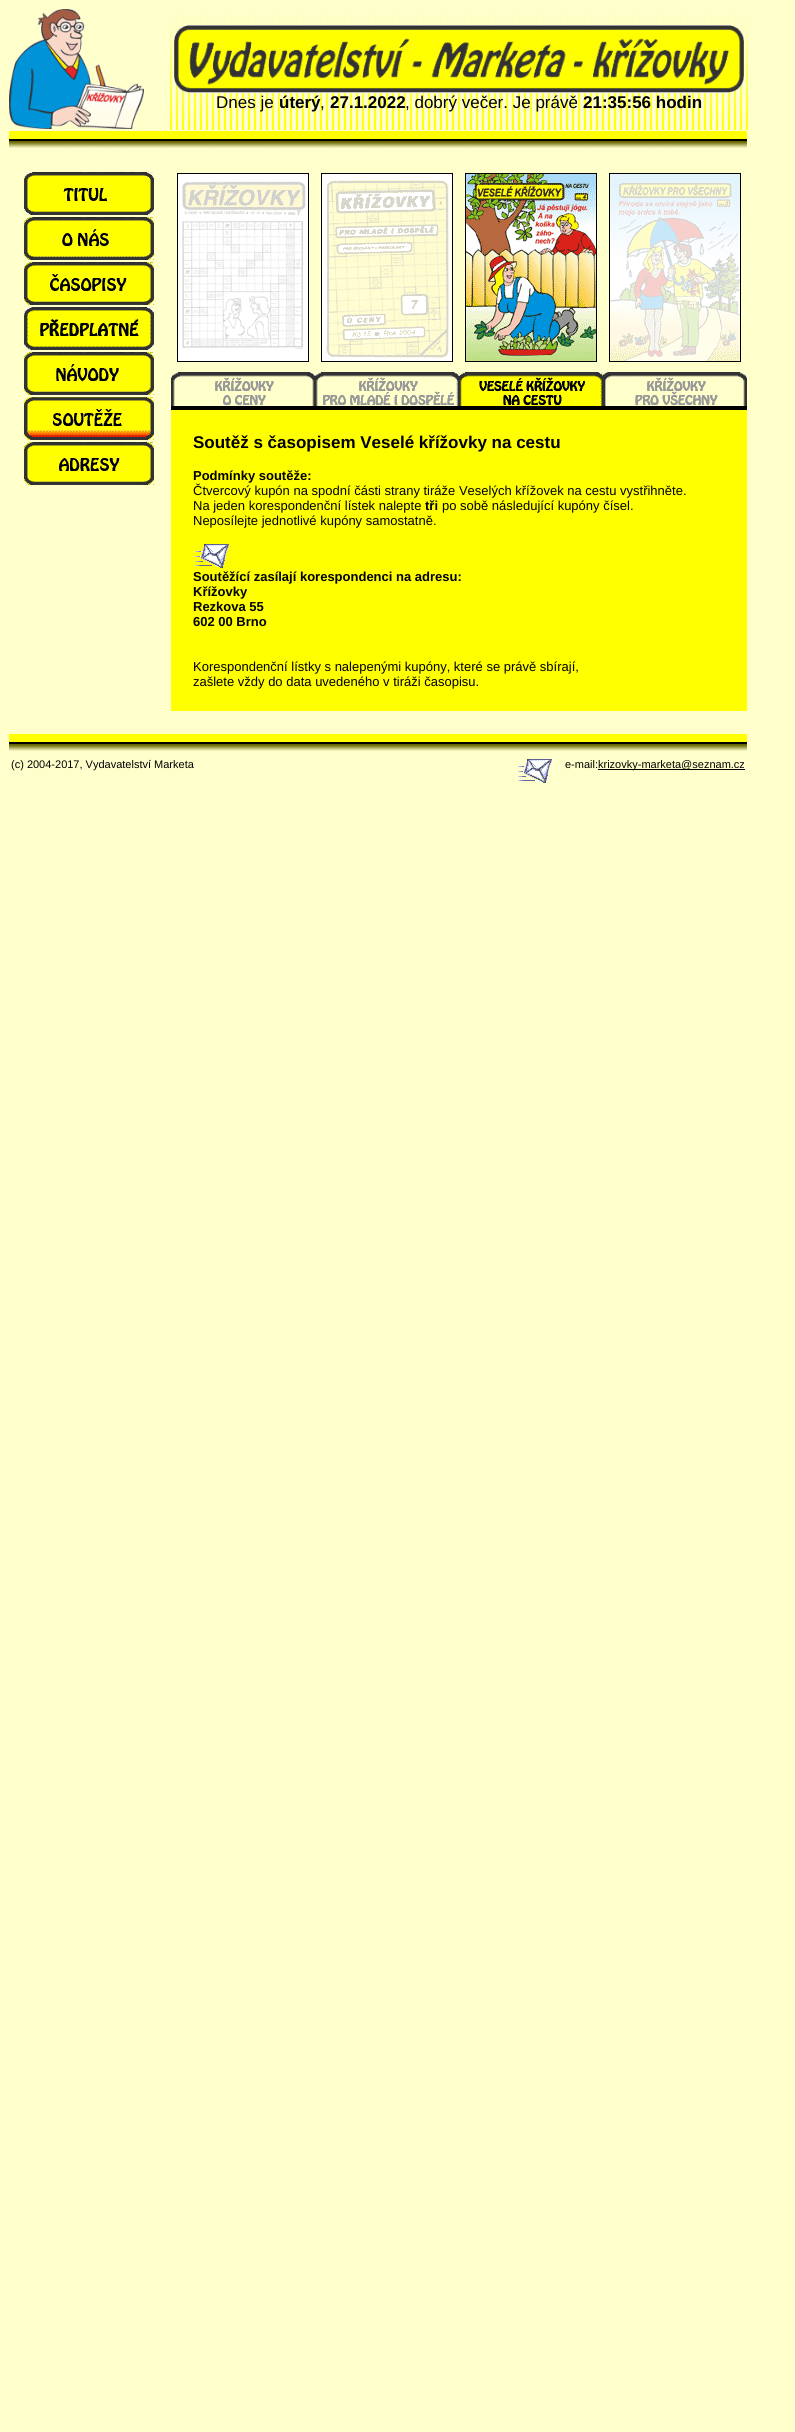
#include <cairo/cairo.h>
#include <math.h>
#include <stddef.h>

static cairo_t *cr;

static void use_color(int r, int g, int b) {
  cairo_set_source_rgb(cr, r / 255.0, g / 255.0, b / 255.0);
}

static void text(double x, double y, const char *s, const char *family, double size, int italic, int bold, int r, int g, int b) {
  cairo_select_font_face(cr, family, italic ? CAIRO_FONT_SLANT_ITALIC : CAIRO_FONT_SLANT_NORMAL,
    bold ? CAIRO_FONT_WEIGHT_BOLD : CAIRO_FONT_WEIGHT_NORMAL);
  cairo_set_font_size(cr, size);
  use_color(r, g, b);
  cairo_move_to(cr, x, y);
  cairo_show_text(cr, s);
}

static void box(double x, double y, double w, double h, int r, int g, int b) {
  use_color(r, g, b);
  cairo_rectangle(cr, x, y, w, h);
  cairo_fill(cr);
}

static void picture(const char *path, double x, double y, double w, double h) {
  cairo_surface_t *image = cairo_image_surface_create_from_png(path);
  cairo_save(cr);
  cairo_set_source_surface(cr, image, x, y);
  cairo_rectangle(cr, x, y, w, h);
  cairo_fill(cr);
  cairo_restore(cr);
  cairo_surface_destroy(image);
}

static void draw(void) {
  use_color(255, 255, 204);
  cairo_paint(cr);
  picture("img_01.png", 9, 9, 135, 120);
  picture("img_02.png", 170, 14, 578, 116);
  picture("img_03.png", 174, 25, 570, 68);
  picture("img_04.png", 9, 131, 738, 17);
  picture("img_05.png", 24, 172, 130, 43);
  picture("img_06.png", 24, 217, 130, 43);
  picture("img_07.png", 24, 262, 130, 43);
  picture("img_08.png", 24, 307, 130, 43);
  picture("img_09.png", 24, 352, 130, 43);
  picture("img_10.png", 24, 397, 130, 43);
  picture("img_11.png", 24, 442, 130, 43);
  cairo_rectangle(cr, 177.5, 173.5, 131, 188);
  use_color(0, 0, 0);
  cairo_set_line_width(cr, 1);
  cairo_stroke(cr);
  picture("img_12.png", 178, 174, 130, 187);
  cairo_rectangle(cr, 321.5, 173.5, 131, 188);
  cairo_stroke(cr);
  picture("img_13.png", 322, 174, 130, 187);
  cairo_rectangle(cr, 465.5, 173.5, 131, 188);
  cairo_stroke(cr);
  picture("img_14.png", 466, 174, 130, 187);
  cairo_rectangle(cr, 609.5, 173.5, 131, 188);
  cairo_stroke(cr);
  picture("img_15.png", 610, 174, 130, 187);
  picture("img_16.png", 171, 372, 144, 34);
  picture("img_17.png", 315, 372, 144, 34);
  picture("img_18.png", 459, 372, 144, 34);
  picture("img_19.png", 603, 372, 144, 34);
  box(171, 410, 576, 301, 255, 255, 0);
  box(171, 406, 576, 4, 0, 0, 0);
  picture("img_20.png", 195, 544, 34, 24);
  picture("img_04.png", 9, 734, 738, 17);
  picture("img_21.png", 518, 759, 34, 24);
  box(598, 769, 147, 1, 0, 0, 0);
  text(216, 108, "Dnes je", "Liberation Sans", 17, 0, 0, 0, 0, 0);
  text(279, 108, "úterý", "Liberation Sans", 17, 0, 1, 0, 0, 0);
  text(320, 108, ",", "Liberation Sans", 17, 0, 0, 0, 0, 0);
  text(330, 108, "27.1.2022", "Liberation Sans", 17, 0, 1, 0, 0, 0);
  text(405, 108, ", dobrý večer. Je právě", "Liberation Sans", 17, 0, 0, 0, 0, 0);
  text(583, 108, "21:35:56 hodin", "Liberation Sans", 17, 0, 1, 0, 0, 0);
  text(193, 448, "Soutěž s časopisem Veselé křížovky na cestu", "Liberation Sans", 17, 0, 1, 0, 0, 0);
  text(193, 480, "Podmínky soutěže:", "Liberation Sans", 13, 0, 1, 0, 0, 0);
  text(193, 495, "Čtvercový kupón na spodní části strany tiráže Veselých křížovek na cestu vystřihněte.", "Liberation Sans", 13, 0, 0, 0, 0, 0);
  text(193, 510, "Na jeden korespondenční lístek nalepte", "Liberation Sans", 13, 0, 0, 0, 0, 0);
  text(425, 510, "tři", "Liberation Sans", 13, 0, 1, 0, 0, 0);
  text(442, 510, "po sobě následující kupóny čísel.", "Liberation Sans", 13, 0, 0, 0, 0, 0);
  text(193, 525, "Neposílejte jednotlivé kupóny samostatně.", "Liberation Sans", 13, 0, 0, 0, 0, 0);
  text(193, 581, "Soutěžící zasílají korespondenci na adresu:", "Liberation Sans", 13, 0, 1, 0, 0, 0);
  text(193, 596, "Křížovky", "Liberation Sans", 13, 0, 1, 0, 0, 0);
  text(193, 611, "Rezkova 55", "Liberation Sans", 13, 0, 1, 0, 0, 0);
  text(193, 626, "602 00 Brno", "Liberation Sans", 13, 0, 1, 0, 0, 0);
  text(193, 671, "Korespondenční lístky s nalepenými kupóny, které se právě sbírají,", "Liberation Sans", 13, 0, 0, 0, 0, 0);
  text(193, 686, "zašlete vždy do data uvedeného v tiráži časopisu.", "Liberation Sans", 13, 0, 0, 0, 0, 0);
  text(11, 768, "(c) 2004-2017, Vydavatelství Marketa", "Liberation Sans", 11, 0, 0, 0, 0, 0);
  text(565, 768, "e-mail:", "Liberation Sans", 11, 0, 0, 0, 0, 0);
  text(598, 768, "krizovky-marketa@seznam.cz", "Liberation Sans", 11, 0, 0, 0, 0, 0);
}

int main(void) {
  cairo_surface_t *surface = cairo_image_surface_create(CAIRO_FORMAT_RGB24, 795, 2432);
  cr = cairo_create(surface);
  cairo_font_options_t *options = cairo_font_options_create();
  cairo_font_options_set_hint_metrics(options, CAIRO_HINT_METRICS_OFF);
  cairo_font_options_set_hint_style(options, CAIRO_HINT_STYLE_NONE);
  cairo_set_font_options(cr, options);
  cairo_set_miter_limit(cr, 4);
  draw();
  cairo_surface_write_to_png(surface, "out.png");
  cairo_font_options_destroy(options);
  cairo_destroy(cr);
  cairo_surface_destroy(surface);
  return 0;
}
